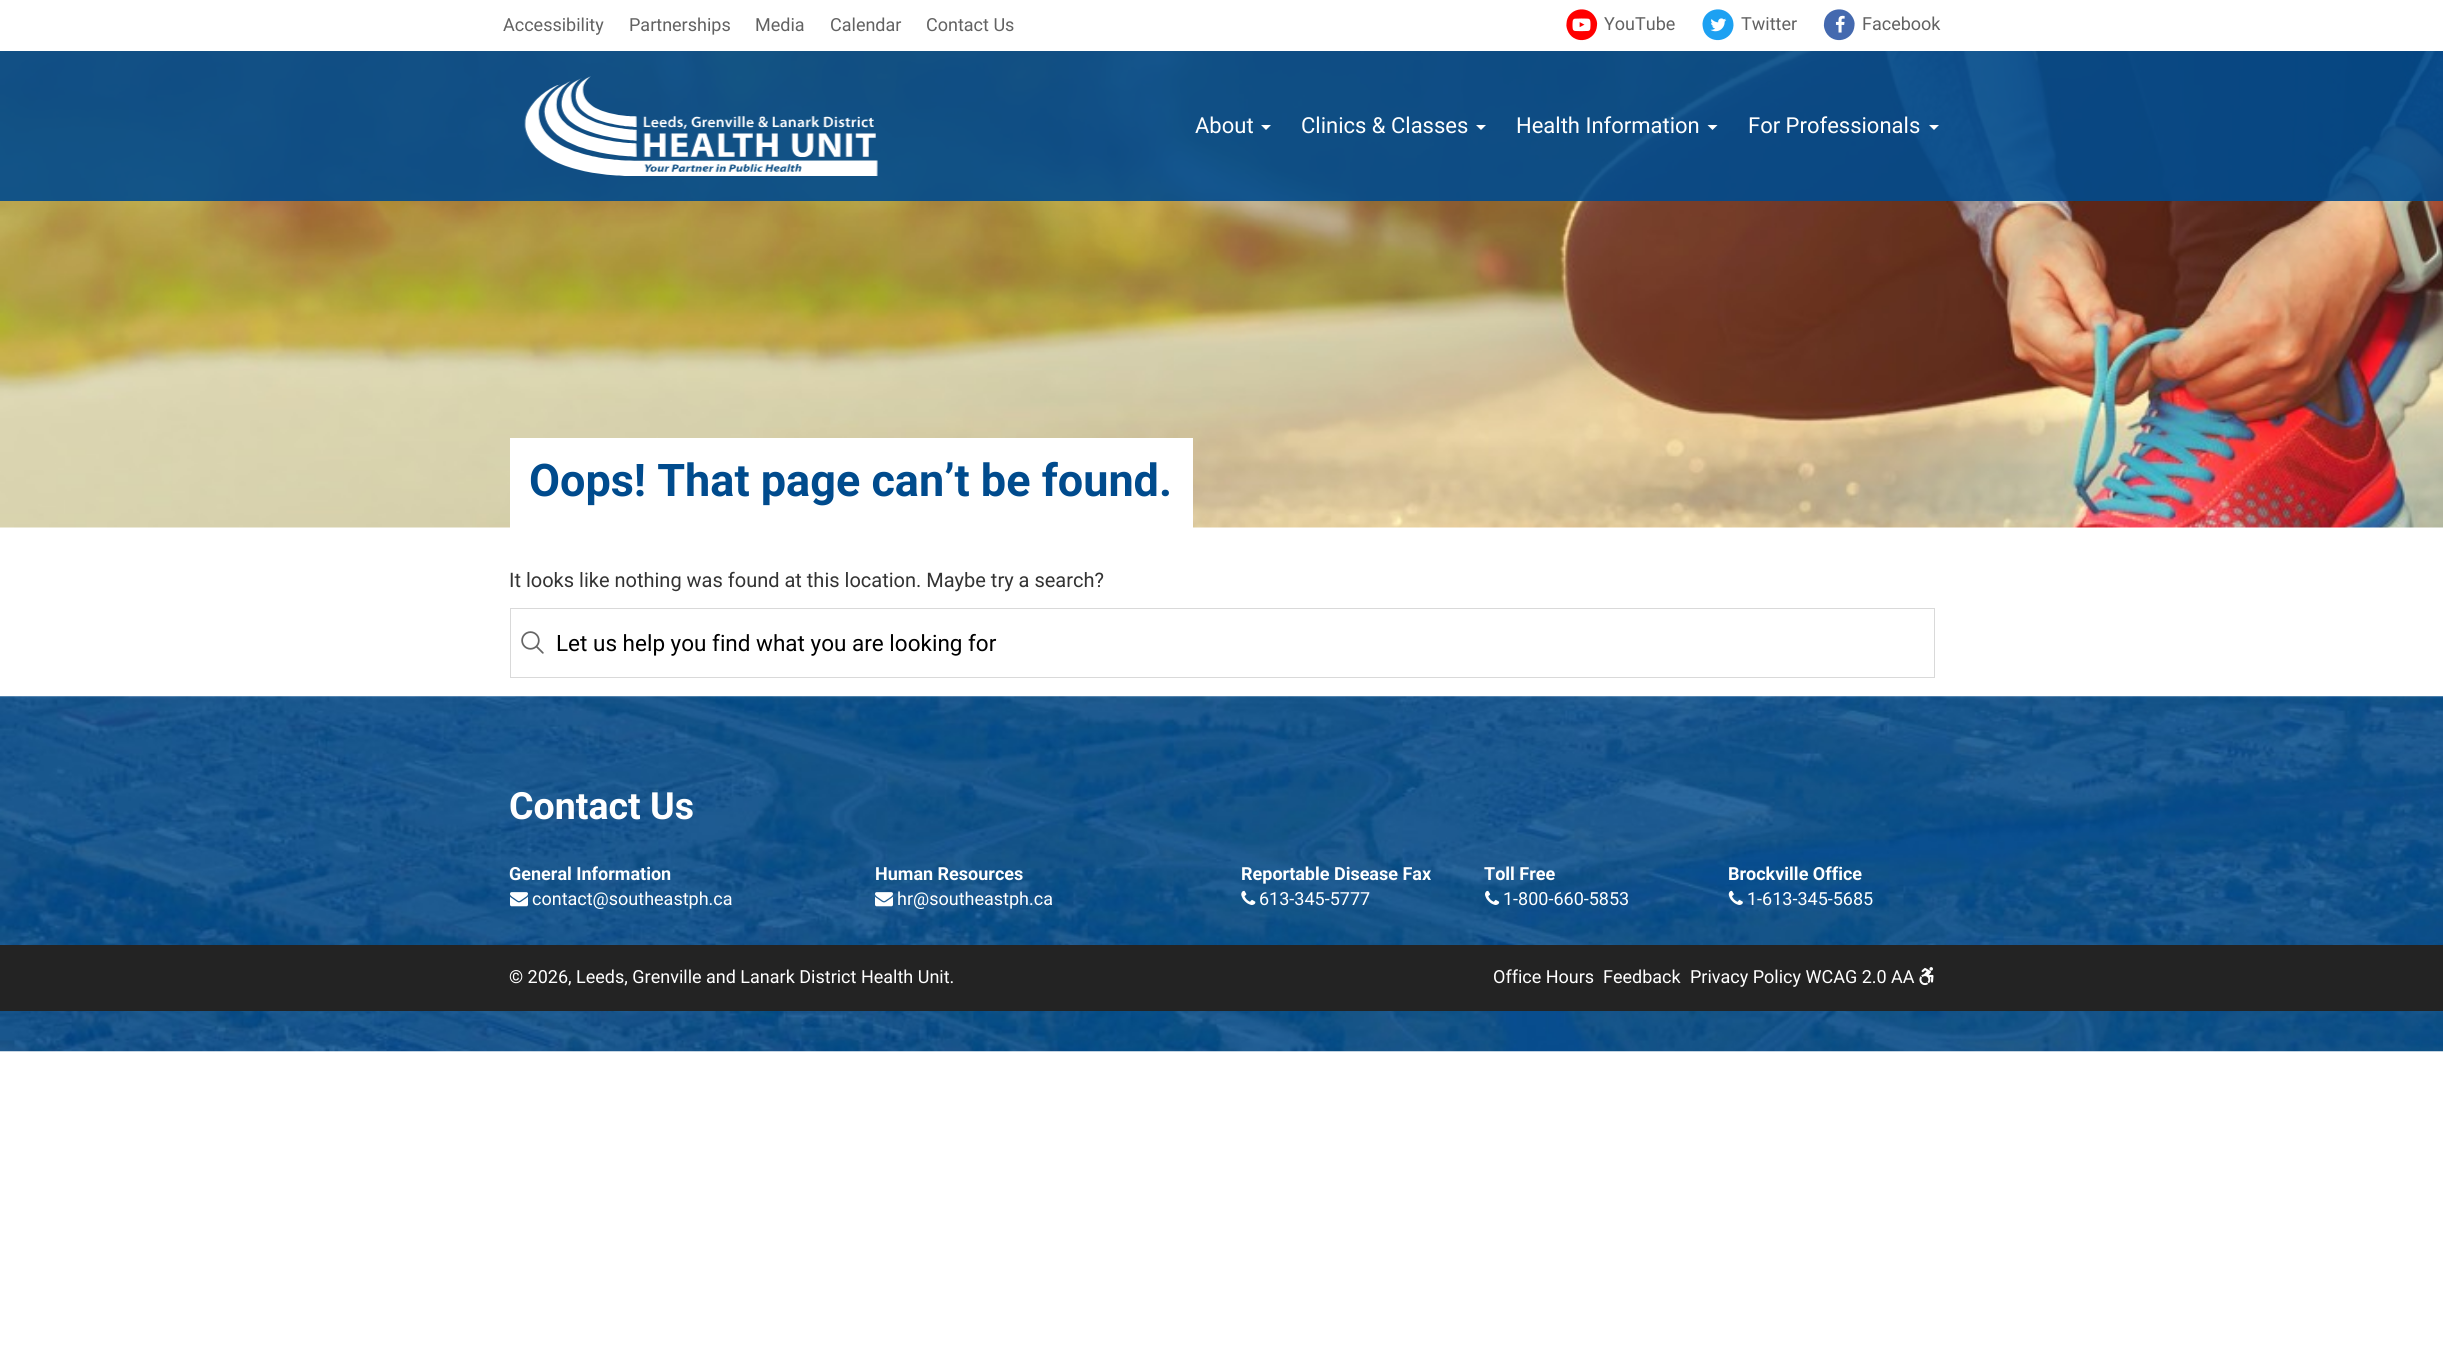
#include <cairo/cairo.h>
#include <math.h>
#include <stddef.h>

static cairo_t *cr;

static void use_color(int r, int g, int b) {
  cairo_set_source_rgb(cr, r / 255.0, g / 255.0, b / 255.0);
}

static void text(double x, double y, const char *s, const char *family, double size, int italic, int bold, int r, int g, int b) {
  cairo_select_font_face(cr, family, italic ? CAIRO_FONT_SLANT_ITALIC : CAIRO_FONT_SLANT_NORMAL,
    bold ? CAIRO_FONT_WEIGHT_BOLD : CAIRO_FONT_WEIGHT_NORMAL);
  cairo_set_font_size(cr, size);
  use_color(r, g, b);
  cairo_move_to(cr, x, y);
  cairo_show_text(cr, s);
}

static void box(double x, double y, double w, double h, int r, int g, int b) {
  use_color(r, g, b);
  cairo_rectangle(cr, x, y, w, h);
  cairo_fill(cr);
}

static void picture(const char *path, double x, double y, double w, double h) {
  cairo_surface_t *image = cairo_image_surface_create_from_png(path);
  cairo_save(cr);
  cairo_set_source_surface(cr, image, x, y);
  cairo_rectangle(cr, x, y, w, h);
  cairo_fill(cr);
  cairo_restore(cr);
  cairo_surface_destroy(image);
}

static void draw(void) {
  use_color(255, 255, 255);
  cairo_paint(cr);
  use_color(255, 0, 0);
  cairo_new_path(cr);
  cairo_move_to(cr, 1595, 17);
  cairo_curve_to(cr, 1596.5, 19.5, 1597.5, 22.5, 1597, 25.5);
  cairo_curve_to(cr, 1596, 41, 1576, 45.5, 1568.5, 32.5);
  cairo_curve_to(cr, 1567, 29.5, 1566, 26.5, 1566.5, 23.5);
  cairo_curve_to(cr, 1567, 8.5, 1587.5, 4, 1595, 17);
  cairo_close_path(cr);
  cairo_fill(cr);
  picture("img_01.png", 1572, 18, 19, 14);
  use_color(29, 161, 242);
  cairo_new_path(cr);
  cairo_move_to(cr, 1731.5, 17);
  cairo_curve_to(cr, 1733, 19.5, 1733.5, 22.5, 1733.5, 25.5);
  cairo_curve_to(cr, 1732.5, 41, 1712, 45.5, 1704.5, 32.5);
  cairo_curve_to(cr, 1703, 29.5, 1702.5, 26.5, 1702.5, 23.5);
  cairo_curve_to(cr, 1703.5, 8.5, 1723.5, 4, 1731.5, 17);
  cairo_close_path(cr);
  cairo_fill(cr);
  picture("img_02.png", 1710, 18, 17, 14);
  use_color(68, 105, 175);
  cairo_new_path(cr);
  cairo_move_to(cr, 1852.5, 17);
  cairo_curve_to(cr, 1854, 19.5, 1855, 22.5, 1854.5, 25.5);
  cairo_curve_to(cr, 1853.5, 41, 1833.5, 45.5, 1826, 32.5);
  cairo_curve_to(cr, 1824.5, 29.5, 1823.5, 26.5, 1824, 23.5);
  cairo_curve_to(cr, 1824.5, 8.5, 1845, 4, 1852.5, 17);
  cairo_close_path(cr);
  cairo_fill(cr);
  picture("img_03.png", 1835, 15, 10, 18);
  picture("img_05.png", 0, 51, 2443, 477);
  cairo_set_source_rgba(cr, 0, 0.294, 0.553, 0.9);
  cairo_rectangle(cr, 0, 51, 2443, 150);
  cairo_fill(cr);
  use_color(255, 255, 255);
  cairo_new_path(cr);
  cairo_move_to(cr, 1261, 125);
  cairo_line_to(cr, 1271, 125);
  cairo_line_to(cr, 1266, 130);
  cairo_close_path(cr);
  cairo_fill(cr);
  cairo_new_path(cr);
  cairo_move_to(cr, 1476, 125);
  cairo_line_to(cr, 1486, 125);
  cairo_line_to(cr, 1481, 130);
  cairo_close_path(cr);
  cairo_fill(cr);
  cairo_new_path(cr);
  cairo_move_to(cr, 1707.5, 125);
  cairo_line_to(cr, 1717.5, 125);
  cairo_line_to(cr, 1712.5, 130);
  cairo_close_path(cr);
  cairo_fill(cr);
  cairo_new_path(cr);
  cairo_move_to(cr, 1929, 125);
  cairo_line_to(cr, 1939, 125);
  cairo_line_to(cr, 1934, 130);
  cairo_close_path(cr);
  cairo_fill(cr);
  picture("img_04.png", 524, 76, 354, 100);
  box(510, 438, 683, 90, 255, 255, 255);
  cairo_rectangle(cr, 510.5, 608.5, 1424, 69);
  use_color(217, 217, 217);
  cairo_set_line_width(cr, 1);
  cairo_stroke(cr);
  picture("img_06.png", 521, 631, 23, 23);
  picture("img_07.png", 0, 696, 2443, 356);
  picture("img_08.png", 510, 892, 18, 15);
  picture("img_09.png", 875, 892, 18, 15);
  picture("img_10.png", 1241, 890, 15, 15);
  picture("img_11.png", 1485, 890, 15, 15);
  picture("img_12.png", 1728, 890, 15, 15);
  box(0, 945, 2443, 66, 35, 35, 35);
  picture("img_13.png", 1919, 967, 15, 19);
  text(1604, 30, "YouTube", "Roboto", 18, 0, 0, 98, 98, 98);
  text(1741, 30, "Twitter", "Roboto", 18, 0, 0, 98, 98, 98);
  text(1862, 30, "Facebook", "Roboto", 18, 0, 0, 98, 98, 98);
  text(503, 31, "Accessibility", "Roboto", 18, 0, 0, 98, 98, 98);
  text(629, 31, "Partnerships", "Roboto", 18, 0, 0, 98, 98, 98);
  text(755, 31, "Media", "Roboto", 18, 0, 0, 98, 98, 98);
  text(830, 31, "Calendar", "Roboto", 18, 0, 0, 98, 98, 98);
  text(926, 31, "Contact Us", "Roboto", 18, 0, 0, 98, 98, 98);
  text(1195, 133, "About", "Roboto", 22, 0, 0, 255, 255, 255);
  text(1301, 133, "Clinics & Classes", "Roboto", 22, 0, 0, 255, 255, 255);
  text(1516, 133, "Health Information", "Roboto", 22, 0, 0, 255, 255, 255);
  text(1748, 133, "For Professionals", "Roboto", 22, 0, 0, 255, 255, 255);
  text(529, 496, "Oops! That page can’t be found.", "Roboto", 45, 0, 1, 0, 75, 141);
  text(509, 587, "It looks like nothing was found at this location. Maybe try a search?", "Roboto", 20, 0, 0, 51, 51, 51);
  text(556, 651, "Let us help you find what you are looking for", "Roboto", 22.5, 0, 0, 0, 0, 0);
  text(509, 819, "Contact Us", "Roboto", 37.5, 0, 1, 255, 255, 255);
  text(509, 880, "General Information", "Roboto", 18, 0, 1, 255, 255, 255);
  text(532, 905, "contact@southeastph.ca", "Roboto", 18, 0, 0, 255, 255, 255);
  text(875, 880, "Human Resources", "Roboto", 18, 0, 1, 255, 255, 255);
  text(897, 905, "hr@southeastph.ca", "Roboto", 18, 0, 0, 255, 255, 255);
  text(1241, 880, "Reportable Disease Fax", "Roboto", 18, 0, 1, 255, 255, 255);
  text(1259, 905, "613-345-5777", "Roboto", 18, 0, 0, 255, 255, 255);
  text(1484, 880, "Toll Free", "Roboto", 18, 0, 1, 255, 255, 255);
  text(1503, 905, "1-800-660-5853", "Roboto", 18, 0, 0, 255, 255, 255);
  text(1728, 880, "Brockville Office", "Roboto", 18, 0, 1, 255, 255, 255);
  text(1747, 905, "1-613-345-5685", "Roboto", 18, 0, 0, 255, 255, 255);
  text(509, 983, "© 2026, Leeds, Grenville and Lanark District Health Unit.", "Roboto", 18, 0, 0, 255, 255, 255);
  text(1493, 983, "Office Hours", "Roboto", 18, 0, 0, 255, 255, 255);
  text(1603, 983, "Feedback", "Roboto", 18, 0, 0, 255, 255, 255);
  text(1690, 983, "Privacy Policy WCAG 2.0 AA", "Roboto", 18, 0, 0, 255, 255, 255);
}

int main(void) {
  cairo_surface_t *surface = cairo_image_surface_create(CAIRO_FORMAT_RGB24, 2443, 1350);
  cr = cairo_create(surface);
  cairo_font_options_t *options = cairo_font_options_create();
  cairo_font_options_set_hint_metrics(options, CAIRO_HINT_METRICS_OFF);
  cairo_font_options_set_hint_style(options, CAIRO_HINT_STYLE_NONE);
  cairo_set_font_options(cr, options);
  cairo_set_miter_limit(cr, 4);
  draw();
  cairo_surface_write_to_png(surface, "out.png");
  cairo_font_options_destroy(options);
  cairo_destroy(cr);
  cairo_surface_destroy(surface);
  return 0;
}
